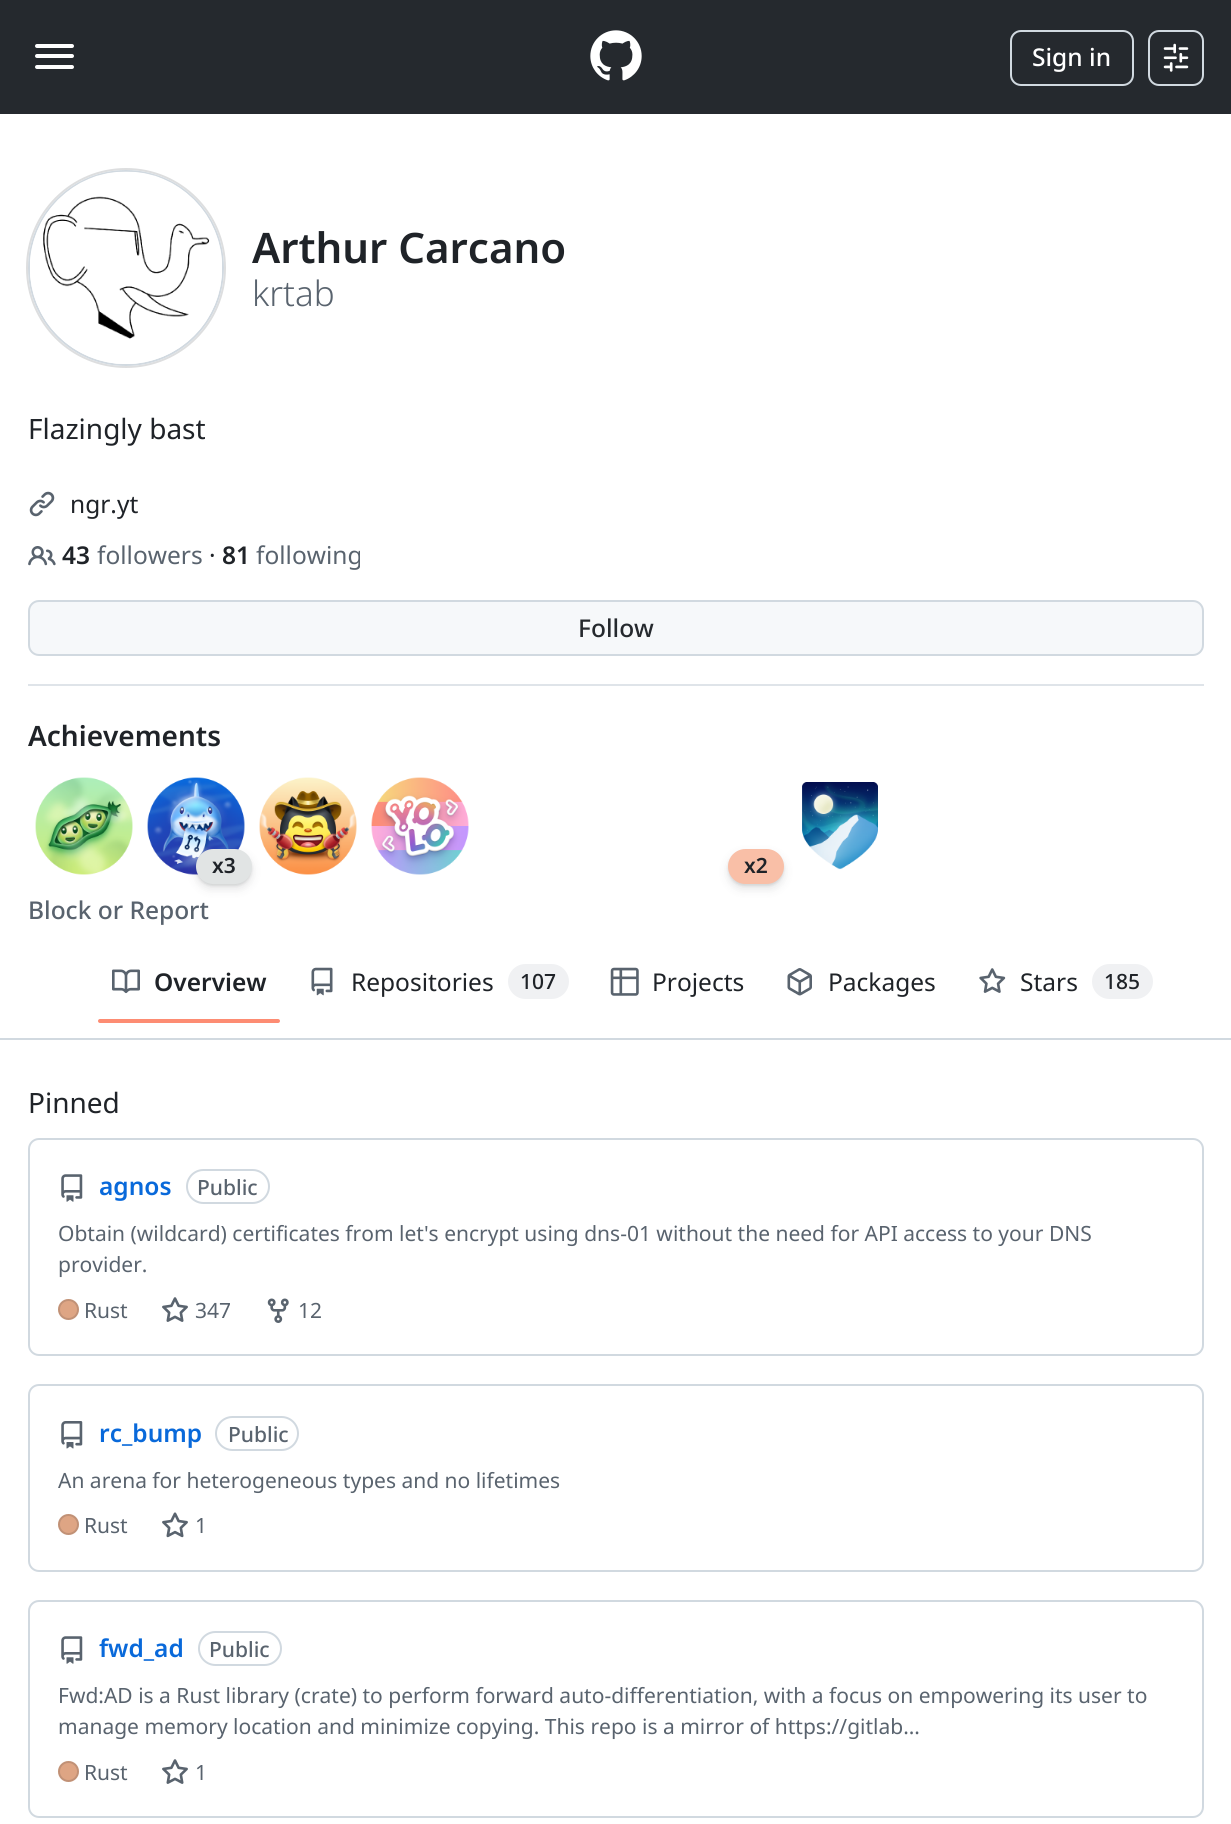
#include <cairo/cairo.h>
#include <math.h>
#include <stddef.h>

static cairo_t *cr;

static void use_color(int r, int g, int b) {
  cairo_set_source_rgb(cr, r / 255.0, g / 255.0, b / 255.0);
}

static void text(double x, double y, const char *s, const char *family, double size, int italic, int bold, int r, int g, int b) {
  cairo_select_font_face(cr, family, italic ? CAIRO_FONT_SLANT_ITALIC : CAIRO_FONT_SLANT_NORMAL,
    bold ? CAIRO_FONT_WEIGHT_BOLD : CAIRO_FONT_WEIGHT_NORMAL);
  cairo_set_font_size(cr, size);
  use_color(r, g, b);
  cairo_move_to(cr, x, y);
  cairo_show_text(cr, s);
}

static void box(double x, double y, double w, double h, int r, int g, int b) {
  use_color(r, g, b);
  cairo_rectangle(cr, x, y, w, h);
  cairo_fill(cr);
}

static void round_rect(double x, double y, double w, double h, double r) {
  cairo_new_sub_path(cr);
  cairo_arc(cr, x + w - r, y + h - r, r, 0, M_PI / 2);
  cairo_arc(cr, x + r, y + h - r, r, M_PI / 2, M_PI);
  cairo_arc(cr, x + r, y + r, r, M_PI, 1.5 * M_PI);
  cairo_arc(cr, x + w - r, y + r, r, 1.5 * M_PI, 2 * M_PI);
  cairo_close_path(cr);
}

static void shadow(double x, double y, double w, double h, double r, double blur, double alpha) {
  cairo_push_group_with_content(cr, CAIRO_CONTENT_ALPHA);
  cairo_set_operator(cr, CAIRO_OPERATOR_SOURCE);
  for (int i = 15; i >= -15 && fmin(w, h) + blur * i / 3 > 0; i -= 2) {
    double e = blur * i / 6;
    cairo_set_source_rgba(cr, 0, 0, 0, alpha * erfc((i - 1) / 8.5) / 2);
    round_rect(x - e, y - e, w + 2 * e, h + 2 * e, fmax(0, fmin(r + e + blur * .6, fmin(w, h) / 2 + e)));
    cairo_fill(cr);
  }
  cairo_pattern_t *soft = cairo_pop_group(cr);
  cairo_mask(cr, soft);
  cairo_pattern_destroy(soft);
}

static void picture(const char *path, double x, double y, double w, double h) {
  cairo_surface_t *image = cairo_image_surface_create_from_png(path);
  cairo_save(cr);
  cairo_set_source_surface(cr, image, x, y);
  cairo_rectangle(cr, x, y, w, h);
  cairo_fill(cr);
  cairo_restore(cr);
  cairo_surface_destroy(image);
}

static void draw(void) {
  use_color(255, 255, 255);
  cairo_paint(cr);
  box(0, 0, 1231, 114, 37, 41, 46);
  use_color(255, 255, 255);
  round_rect(35, 44, 39, 4, 2);
  cairo_fill(cr);
  round_rect(35, 54, 39, 4, 2);
  cairo_fill(cr);
  round_rect(35, 65, 39, 4, 2);
  cairo_fill(cr);
  picture("img_01.png", 590, 30, 52, 51);
  round_rect(1011, 31, 122, 54, 10);
  use_color(209, 217, 224);
  cairo_stroke(cr);
  round_rect(1149, 31, 54, 54, 10);
  cairo_stroke(cr);
  picture("img_02.png", 1163, 43, 26, 29);
  cairo_arc(cr, 126, 268, 99, 0, 2 * M_PI);
  use_color(221, 222, 223);
  cairo_stroke(cr);
  use_color(255, 255, 255);
  cairo_arc(cr, 126, 268, 97, 0, 2 * M_PI);
  cairo_fill_preserve(cr);
  use_color(209, 217, 224);
  cairo_stroke(cr);
  picture("img_03.png", 30, 171, 192, 193);
  picture("img_04.png", 29, 491, 26, 26);
  picture("img_05.png", 28, 546, 28, 20);
  use_color(246, 248, 250);
  round_rect(29, 601, 1174, 54, 10);
  cairo_fill_preserve(cr);
  use_color(209, 217, 224);
  cairo_stroke(cr);
  box(28, 684, 1176, 2, 223, 228, 233);
  picture("img_06.png", 35, 777, 98, 98);
  picture("img_07.png", 147, 777, 98, 98);
  use_color(37, 41, 46);
  shadow(196, 854, 56, 35, 17.5, 5, 0.12);
  shadow(196, 851, 56, 35, 17.5, 1, 0.1);
  use_color(225, 228, 228);
  round_rect(197, 850, 54, 33, 16.5);
  cairo_fill_preserve(cr);
  cairo_stroke(cr);
  picture("img_08.png", 259, 777, 98, 98);
  picture("img_09.png", 371, 777, 98, 98);
  use_color(37, 41, 46);
  shadow(728, 854, 56, 35, 17.5, 5, 0.12);
  shadow(728, 851, 56, 35, 17.5, 1, 0.1);
  use_color(249, 191, 167);
  round_rect(729, 850, 54, 33, 16.5);
  cairo_fill_preserve(cr);
  cairo_stroke(cr);
  picture("img_10.png", 802, 782, 76, 88);
  box(0, 1038, 1231, 2, 209, 217, 224);
  picture("img_11.png", 112, 969, 28, 25);
  use_color(253, 140, 115);
  round_rect(98, 1019, 182, 4, 2);
  cairo_fill(cr);
  picture("img_12.png", 311, 967, 22, 29);
  use_color(240, 241, 243);
  round_rect(508, 964, 61, 35, 17.5);
  cairo_fill(cr);
  picture("img_13.png", 610, 967, 29, 29);
  picture("img_14.png", 787, 968, 25, 28);
  picture("img_15.png", 979, 968, 27, 25);
  round_rect(1092, 964, 61, 35, 17.5);
  cairo_fill(cr);
  round_rect(29, 1139, 1174, 216, 10);
  use_color(209, 217, 224);
  cairo_stroke(cr);
  picture("img_16.png", 61, 1174, 22, 28);
  round_rect(187, 1170, 82, 33, 16.5);
  cairo_stroke(cr);
  use_color(222, 165, 132);
  cairo_arc(cr, 68.5, 1309.5, 10.5, 0, 2 * M_PI);
  cairo_fill(cr);
  cairo_arc(cr, 68.5, 1309.5, 9.5, 0, 2 * M_PI);
  cairo_set_source_rgba(cr, 0.122, 0.137, 0.157, 0.15);
  cairo_stroke(cr);
  picture("img_17.png", 162, 1297, 26, 25);
  picture("img_18.png", 267, 1298, 22, 25);
  round_rect(29, 1385, 1174, 186, 10);
  use_color(209, 217, 224);
  cairo_stroke(cr);
  picture("img_19.png", 61, 1421, 22, 28);
  round_rect(216, 1417, 82, 33, 16.5);
  cairo_stroke(cr);
  use_color(222, 165, 132);
  cairo_arc(cr, 68.5, 1524.5, 10.5, 0, 2 * M_PI);
  cairo_fill(cr);
  cairo_arc(cr, 68.5, 1524.5, 9.5, 0, 2 * M_PI);
  cairo_set_source_rgba(cr, 0.122, 0.137, 0.157, 0.15);
  cairo_stroke(cr);
  picture("img_20.png", 162, 1512, 26, 26);
  round_rect(29, 1601, 1174, 216, 10);
  use_color(209, 217, 224);
  cairo_stroke(cr);
  picture("img_16.png", 61, 1636, 22, 28);
  round_rect(199, 1632, 82, 33, 16.5);
  cairo_stroke(cr);
  use_color(222, 165, 132);
  cairo_arc(cr, 68.5, 1771.5, 10.5, 0, 2 * M_PI);
  cairo_fill(cr);
  cairo_arc(cr, 68.5, 1771.5, 9.5, 0, 2 * M_PI);
  cairo_set_source_rgba(cr, 0.122, 0.137, 0.157, 0.15);
  cairo_stroke(cr);
  picture("img_17.png", 162, 1759, 26, 25);
  text(1032, 66, "Sign in", "Noto Sans Medium", 24.5, 0, 0, 255, 255, 255);
  text(252, 263, "Arthur Carcano", "Noto Sans SemiBold", 42, 0, 0, 31, 35, 40);
  text(252, 306, "krtab", "Noto Sans Light", 35, 0, 0, 89, 99, 110);
  text(28, 439, "Flazingly bast", "Noto Sans", 28, 0, 0, 31, 35, 40);
  text(70, 513, "ngr.yt", "Noto Sans", 24.5, 0, 0, 31, 35, 40);
  text(62, 564, "43", "Noto Sans SemiBold", 24.5, 0, 0, 31, 35, 40);
  text(97, 564, "followers", "Noto Sans", 24.5, 0, 0, 89, 99, 110);
  text(209, 564, "·", "Noto Sans", 24.5, 0, 0, 31, 35, 40);
  text(222, 564, "81", "Noto Sans SemiBold", 24.5, 0, 0, 31, 35, 40);
  text(256, 564, "following", "Noto Sans", 24.5, 0, 0, 89, 99, 110);
  text(578, 637, "Follow", "Noto Sans Medium", 24.5, 0, 0, 37, 41, 46);
  text(28, 746, "Achievements", "Noto Sans SemiBold", 28, 0, 0, 31, 35, 40);
  text(212, 873, "x3", "Noto Sans SemiBold", 21, 0, 0, 31, 35, 40);
  text(744, 873, "x2", "Noto Sans SemiBold", 21, 0, 0, 31, 35, 40);
  text(28, 919, "Block or Report", "Noto Sans Medium", 24.5, 0, 0, 89, 99, 110);
  text(154, 991, "Overview", "Noto Sans SemiBold", 24.5, 0, 0, 31, 35, 40);
  text(351, 991, "Repositories", "Noto Sans", 24.5, 0, 0, 31, 35, 40);
  text(520, 989, "107", "Noto Sans Medium", 21, 0, 0, 31, 35, 40);
  text(652, 991, "Projects", "Noto Sans", 24.5, 0, 0, 31, 35, 40);
  text(828, 991, "Packages", "Noto Sans", 24.5, 0, 0, 31, 35, 40);
  text(1020, 991, "Stars", "Noto Sans", 24.5, 0, 0, 31, 35, 40);
  text(1104, 989, "185", "Noto Sans Medium", 21, 0, 0, 31, 35, 40);
  text(28, 1113, "Pinned", "Noto Sans", 28, 0, 0, 31, 35, 40);
  text(99, 1195, "agnos", "Noto Sans SemiBold", 24.5, 0, 0, 9, 105, 218);
  text(197, 1195, "Public", "Noto Sans Medium", 21, 0, 0, 89, 99, 110);
  text(58, 1241, "Obtain (wildcard) certificates from let's encrypt using dns-01 without the need for API access to your DNS", "Noto Sans", 21, 0, 0, 89, 99, 110);
  text(58, 1272, "provider.", "Noto Sans", 21, 0, 0, 89, 99, 110);
  text(84, 1318, "Rust", "Noto Sans", 21, 0, 0, 89, 99, 110);
  text(195, 1318, "347", "Noto Sans", 21, 0, 0, 89, 99, 110);
  text(298, 1318, "12", "Noto Sans", 21, 0, 0, 89, 99, 110);
  text(99, 1442, "rc_bump", "Noto Sans SemiBold", 24.5, 0, 0, 9, 105, 218);
  text(228, 1442, "Public", "Noto Sans Medium", 21, 0, 0, 89, 99, 110);
  text(58, 1488, "An arena for heterogeneous types and no lifetimes", "Noto Sans", 21, 0, 0, 89, 99, 110);
  text(84, 1533, "Rust", "Noto Sans", 21, 0, 0, 89, 99, 110);
  text(195, 1533, "1", "Noto Sans", 21, 0, 0, 89, 99, 110);
  text(99, 1657, "fwd_ad", "Noto Sans SemiBold", 24.5, 0, 0, 9, 105, 218);
  text(209, 1657, "Public", "Noto Sans Medium", 21, 0, 0, 89, 99, 110);
  text(58, 1703, "Fwd:AD is a Rust library (crate) to perform forward auto-differentiation, with a focus on empowering its user to", "Noto Sans", 21, 0, 0, 89, 99, 110);
  text(58, 1734, "manage memory location and minimize copying. This repo is a mirror of https://gitlab…", "Noto Sans", 21, 0, 0, 89, 99, 110);
  text(84, 1780, "Rust", "Noto Sans", 21, 0, 0, 89, 99, 110);
  text(195, 1780, "1", "Noto Sans", 21, 0, 0, 89, 99, 110);
}

int main(void) {
  cairo_surface_t *surface = cairo_image_surface_create(CAIRO_FORMAT_RGB24, 1231, 1824);
  cr = cairo_create(surface);
  cairo_font_options_t *options = cairo_font_options_create();
  cairo_font_options_set_hint_metrics(options, CAIRO_HINT_METRICS_OFF);
  cairo_font_options_set_hint_style(options, CAIRO_HINT_STYLE_NONE);
  cairo_set_font_options(cr, options);
  cairo_set_miter_limit(cr, 4);
  draw();
  cairo_surface_write_to_png(surface, "out.png");
  cairo_font_options_destroy(options);
  cairo_destroy(cr);
  cairo_surface_destroy(surface);
  return 0;
}
